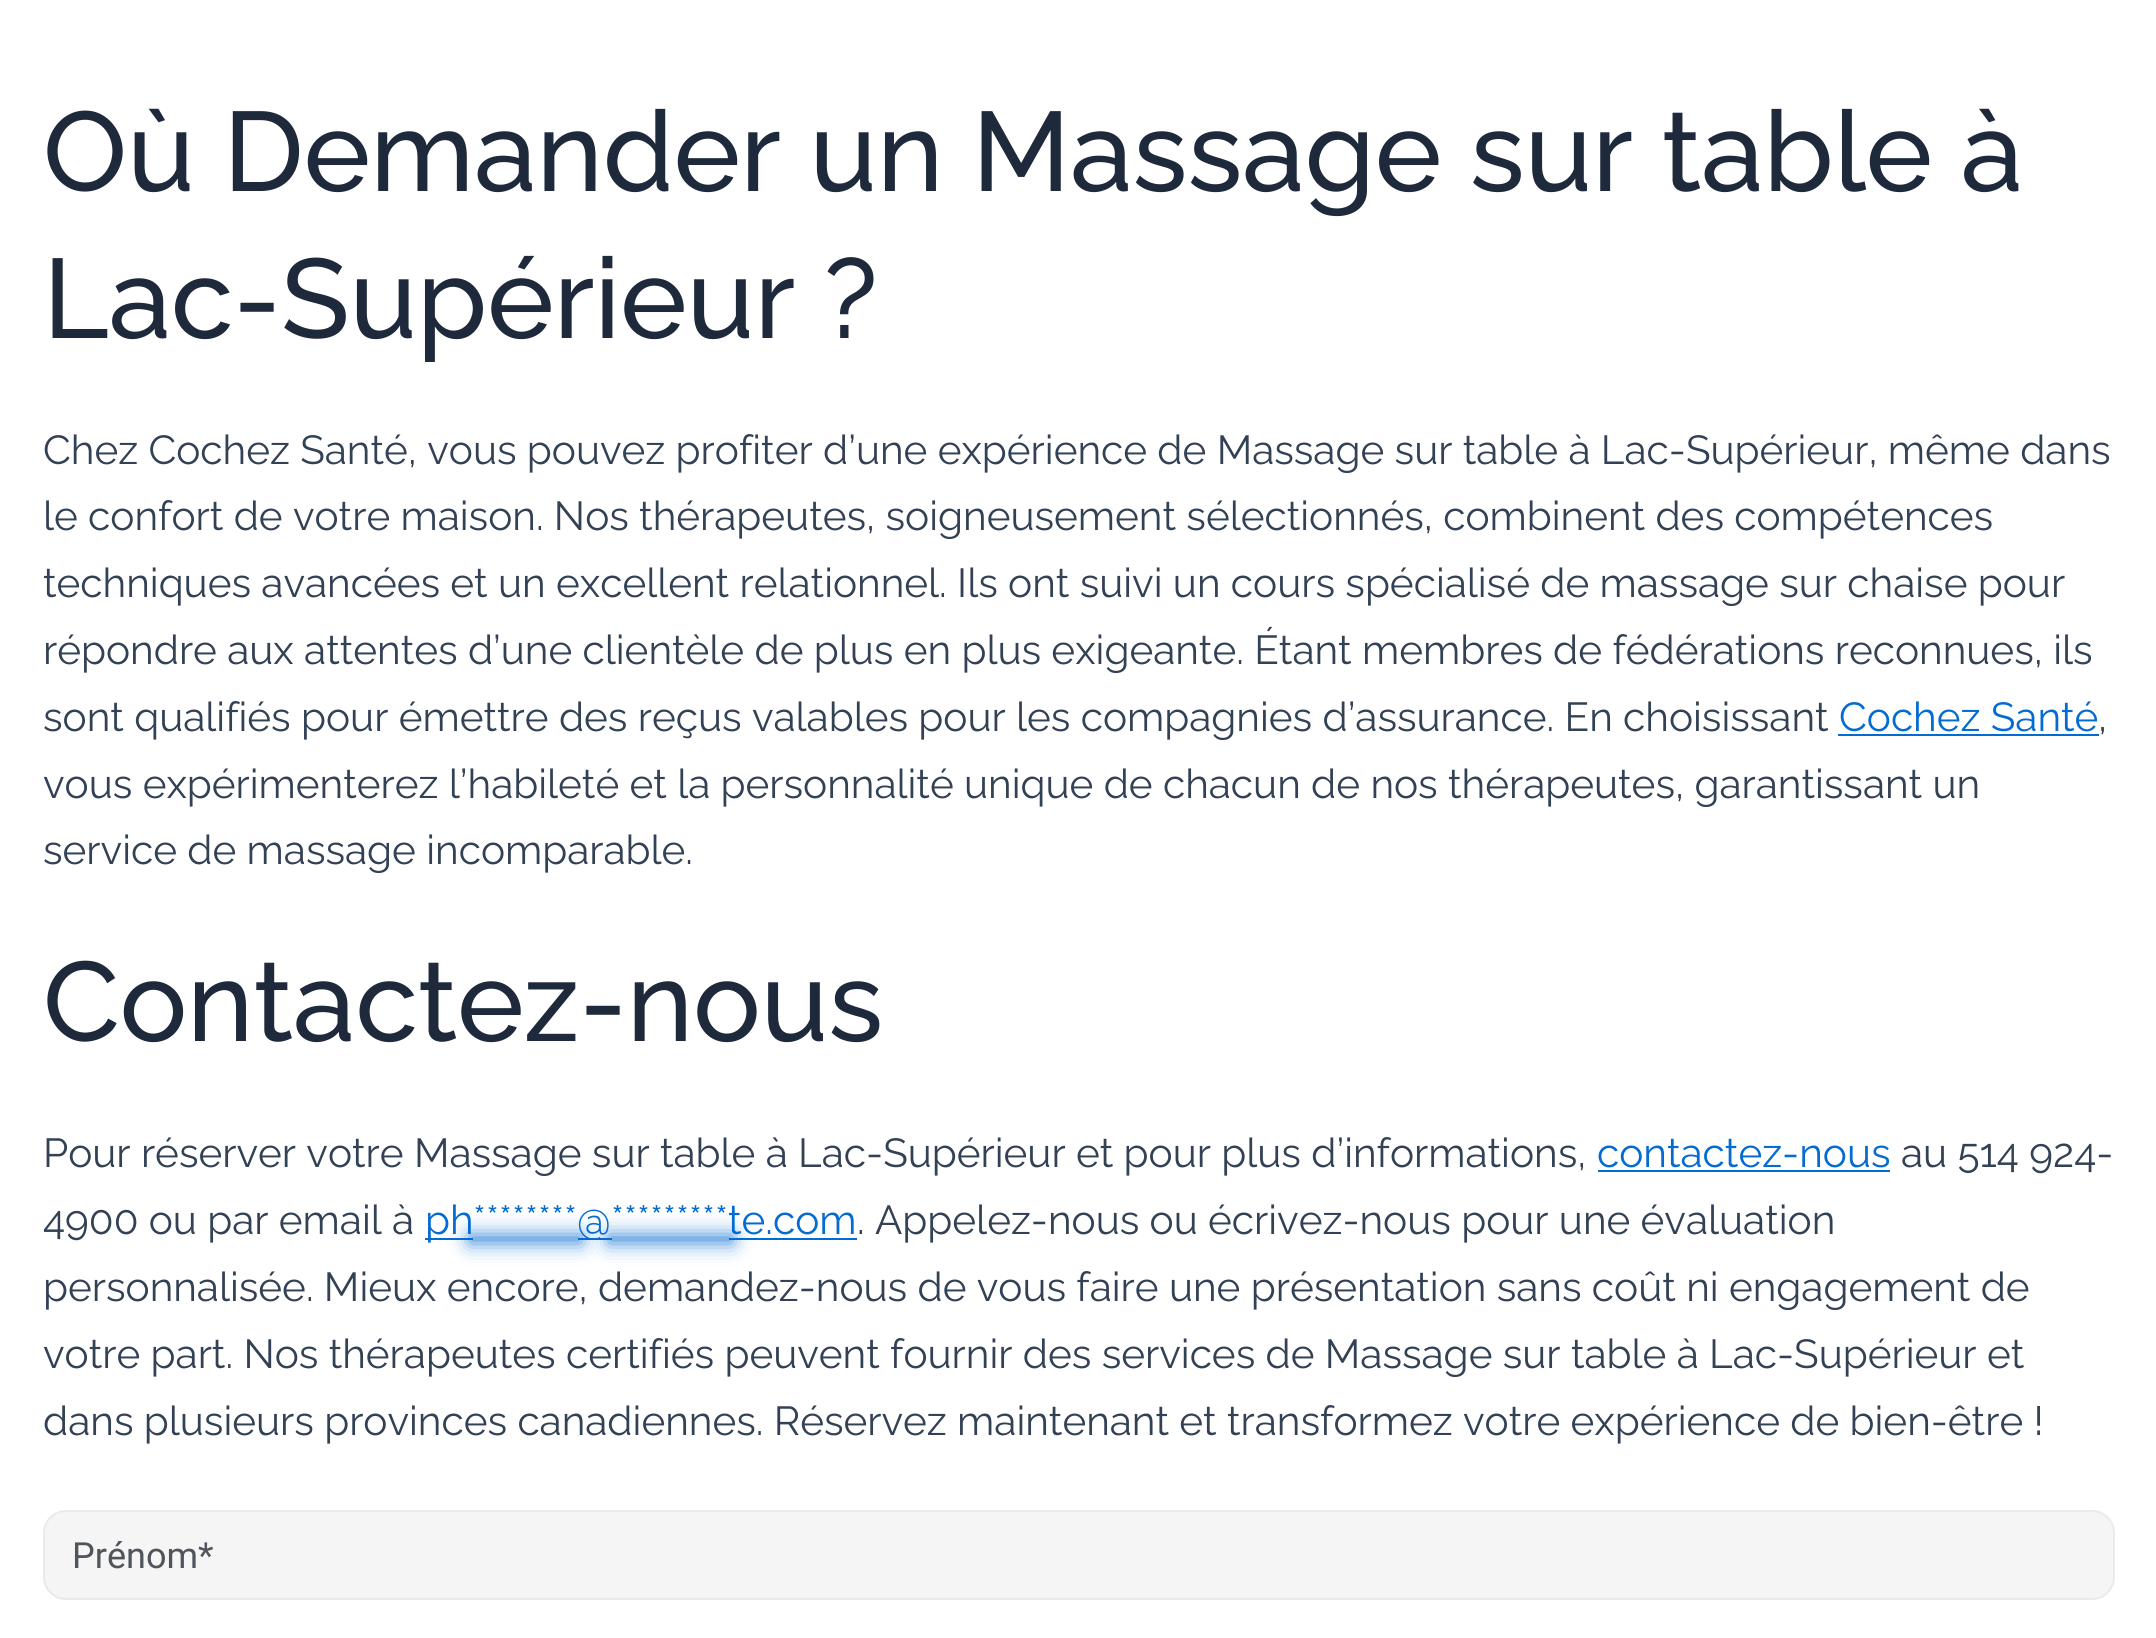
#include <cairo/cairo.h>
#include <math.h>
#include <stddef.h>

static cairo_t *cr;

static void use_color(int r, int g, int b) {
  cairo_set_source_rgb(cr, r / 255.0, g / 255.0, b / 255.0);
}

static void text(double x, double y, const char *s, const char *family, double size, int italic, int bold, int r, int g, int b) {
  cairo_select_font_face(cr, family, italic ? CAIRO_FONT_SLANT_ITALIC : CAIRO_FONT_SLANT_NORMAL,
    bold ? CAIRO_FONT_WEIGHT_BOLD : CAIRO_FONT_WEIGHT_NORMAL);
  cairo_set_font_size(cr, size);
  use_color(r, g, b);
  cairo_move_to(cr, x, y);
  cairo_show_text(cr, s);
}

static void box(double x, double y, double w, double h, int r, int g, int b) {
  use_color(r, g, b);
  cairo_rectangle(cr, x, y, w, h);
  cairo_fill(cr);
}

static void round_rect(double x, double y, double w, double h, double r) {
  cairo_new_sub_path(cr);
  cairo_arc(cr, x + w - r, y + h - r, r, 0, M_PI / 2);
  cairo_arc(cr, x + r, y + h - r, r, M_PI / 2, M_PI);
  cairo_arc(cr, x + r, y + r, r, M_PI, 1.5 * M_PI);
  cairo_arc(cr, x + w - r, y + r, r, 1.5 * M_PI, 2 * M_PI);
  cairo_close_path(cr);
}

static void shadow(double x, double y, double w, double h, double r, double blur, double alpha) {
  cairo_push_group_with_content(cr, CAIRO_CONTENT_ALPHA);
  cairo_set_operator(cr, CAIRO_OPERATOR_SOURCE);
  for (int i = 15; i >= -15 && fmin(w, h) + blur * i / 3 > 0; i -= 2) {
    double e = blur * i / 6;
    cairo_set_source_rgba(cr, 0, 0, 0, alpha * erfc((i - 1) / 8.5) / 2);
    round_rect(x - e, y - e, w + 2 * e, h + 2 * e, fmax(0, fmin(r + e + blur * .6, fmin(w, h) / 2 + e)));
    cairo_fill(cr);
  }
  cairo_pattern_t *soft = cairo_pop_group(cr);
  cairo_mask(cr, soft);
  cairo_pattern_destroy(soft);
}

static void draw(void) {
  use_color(255, 255, 255);
  cairo_paint(cr);
  box(1838, 734, 261, 2, 4, 107, 210);
  box(1598, 1170, 292, 2, 4, 107, 210);
  box(425, 1238, 48, 2, 4, 107, 210);
  box(578, 1238, 34, 2, 4, 107, 210);
  use_color(4, 107, 210);
  shadow(473, 1238, 105, 2, 0, 11, 1);
  box(729, 1238, 128, 2, 4, 107, 210);
  use_color(4, 107, 210);
  shadow(612, 1238, 117, 2, 0, 11, 1);
  cairo_set_source_rgba(cr, 0.733, 0.733, 0.733, 0.15);
  round_rect(43, 1510, 2072, 90, 23);
  cairo_fill(cr);
  round_rect(44, 1511, 2070, 88, 22);
  cairo_set_source_rgba(cr, 0.533, 0.533, 0.533, 0.1);
  cairo_stroke(cr);
  text(43, 191, "Où Demander un Massage sur table à", "Raleway Medium", 112.5, 0, 0, 30, 41, 59);
  text(43, 338, "Lac-Supérieur ?", "Raleway Medium", 112.5, 0, 0, 30, 41, 59);
  text(43, 464, "Chez Cochez Santé, vous pouvez profiter d’une expérience de Massage sur table à Lac-Supérieur, même dans", "Raleway", 40.5, 0, 0, 51, 65, 85);
  text(43, 530, "le confort de votre maison. Nos thérapeutes, soigneusement sélectionnés, combinent des compétences", "Raleway", 40.5, 0, 0, 51, 65, 85);
  text(43, 597, "techniques avancées et un excellent relationnel. Ils ont suivi un cours spécialisé de massage sur chaise pour", "Raleway", 40.5, 0, 0, 51, 65, 85);
  text(43, 664, "répondre aux attentes d’une clientèle de plus en plus exigeante. Étant membres de fédérations reconnues, ils", "Raleway", 40.5, 0, 0, 51, 65, 85);
  text(43, 731, "sont qualifiés pour émettre des reçus valables pour les compagnies d’assurance. En choisissant", "Raleway", 40.5, 0, 0, 51, 65, 85);
  text(1839, 731, "Cochez Santé", "Raleway", 40.5, 0, 0, 4, 107, 210);
  text(2098, 731, ",", "Raleway", 40.5, 0, 0, 51, 65, 85);
  text(43, 798, "vous expérimenterez l’habileté et la personnalité unique de chacun de nos thérapeutes, garantissant un", "Raleway", 40.5, 0, 0, 51, 65, 85);
  text(43, 864, "service de massage incomparable.", "Raleway", 40.5, 0, 0, 51, 65, 85);
  text(43, 1041, "Contactez-nous", "Raleway Medium", 112.5, 0, 0, 30, 41, 59);
  text(43, 1167, "Pour réserver votre Massage sur table à Lac-Supérieur et pour plus d’informations,", "Raleway", 40.5, 0, 0, 51, 65, 85);
  text(1597, 1167, "contactez-nous", "Raleway", 40.5, 0, 0, 4, 107, 210);
  text(1901, 1167, "au 514 924-", "Raleway", 40.5, 0, 0, 51, 65, 85);
  text(43, 1234, "4900 ou par email à", "Raleway", 40.5, 0, 0, 51, 65, 85);
  text(425, 1234, "ph", "Raleway", 40.5, 0, 0, 4, 107, 210);
  text(473, 1234, "********", "Raleway", 40.5, 0, 0, 4, 107, 210);
  text(577, 1234, "@", "Raleway", 40.5, 0, 0, 4, 107, 210);
  text(611, 1234, "*********", "Raleway", 40.5, 0, 0, 4, 107, 210);
  text(728, 1234, "te.com", "Raleway", 40.5, 0, 0, 4, 107, 210);
  text(857, 1234, ". Appelez-nous ou écrivez-nous pour une évaluation", "Raleway", 40.5, 0, 0, 51, 65, 85);
  text(43, 1301, "personnalisée. Mieux encore, demandez-nous de vous faire une présentation sans coût ni engagement de", "Raleway", 40.5, 0, 0, 51, 65, 85);
  text(43, 1368, "votre part. Nos thérapeutes certifiés peuvent fournir des services de Massage sur table à Lac-Supérieur et", "Raleway", 40.5, 0, 0, 51, 65, 85);
  text(43, 1435, "dans plusieurs provinces canadiennes. Réservez maintenant et transformez votre expérience de bien-être !", "Raleway", 40.5, 0, 0, 51, 65, 85);
  text(72, 1568, "Prénom*", "Roboto", 36, 0, 0, 80, 85, 91);
}

int main(void) {
  cairo_surface_t *surface = cairo_image_surface_create(CAIRO_FORMAT_RGB24, 2156, 1638);
  cr = cairo_create(surface);
  cairo_font_options_t *options = cairo_font_options_create();
  cairo_font_options_set_hint_metrics(options, CAIRO_HINT_METRICS_OFF);
  cairo_font_options_set_hint_style(options, CAIRO_HINT_STYLE_NONE);
  cairo_set_font_options(cr, options);
  cairo_set_miter_limit(cr, 4);
  draw();
  cairo_surface_write_to_png(surface, "out.png");
  cairo_font_options_destroy(options);
  cairo_destroy(cr);
  cairo_surface_destroy(surface);
  return 0;
}
